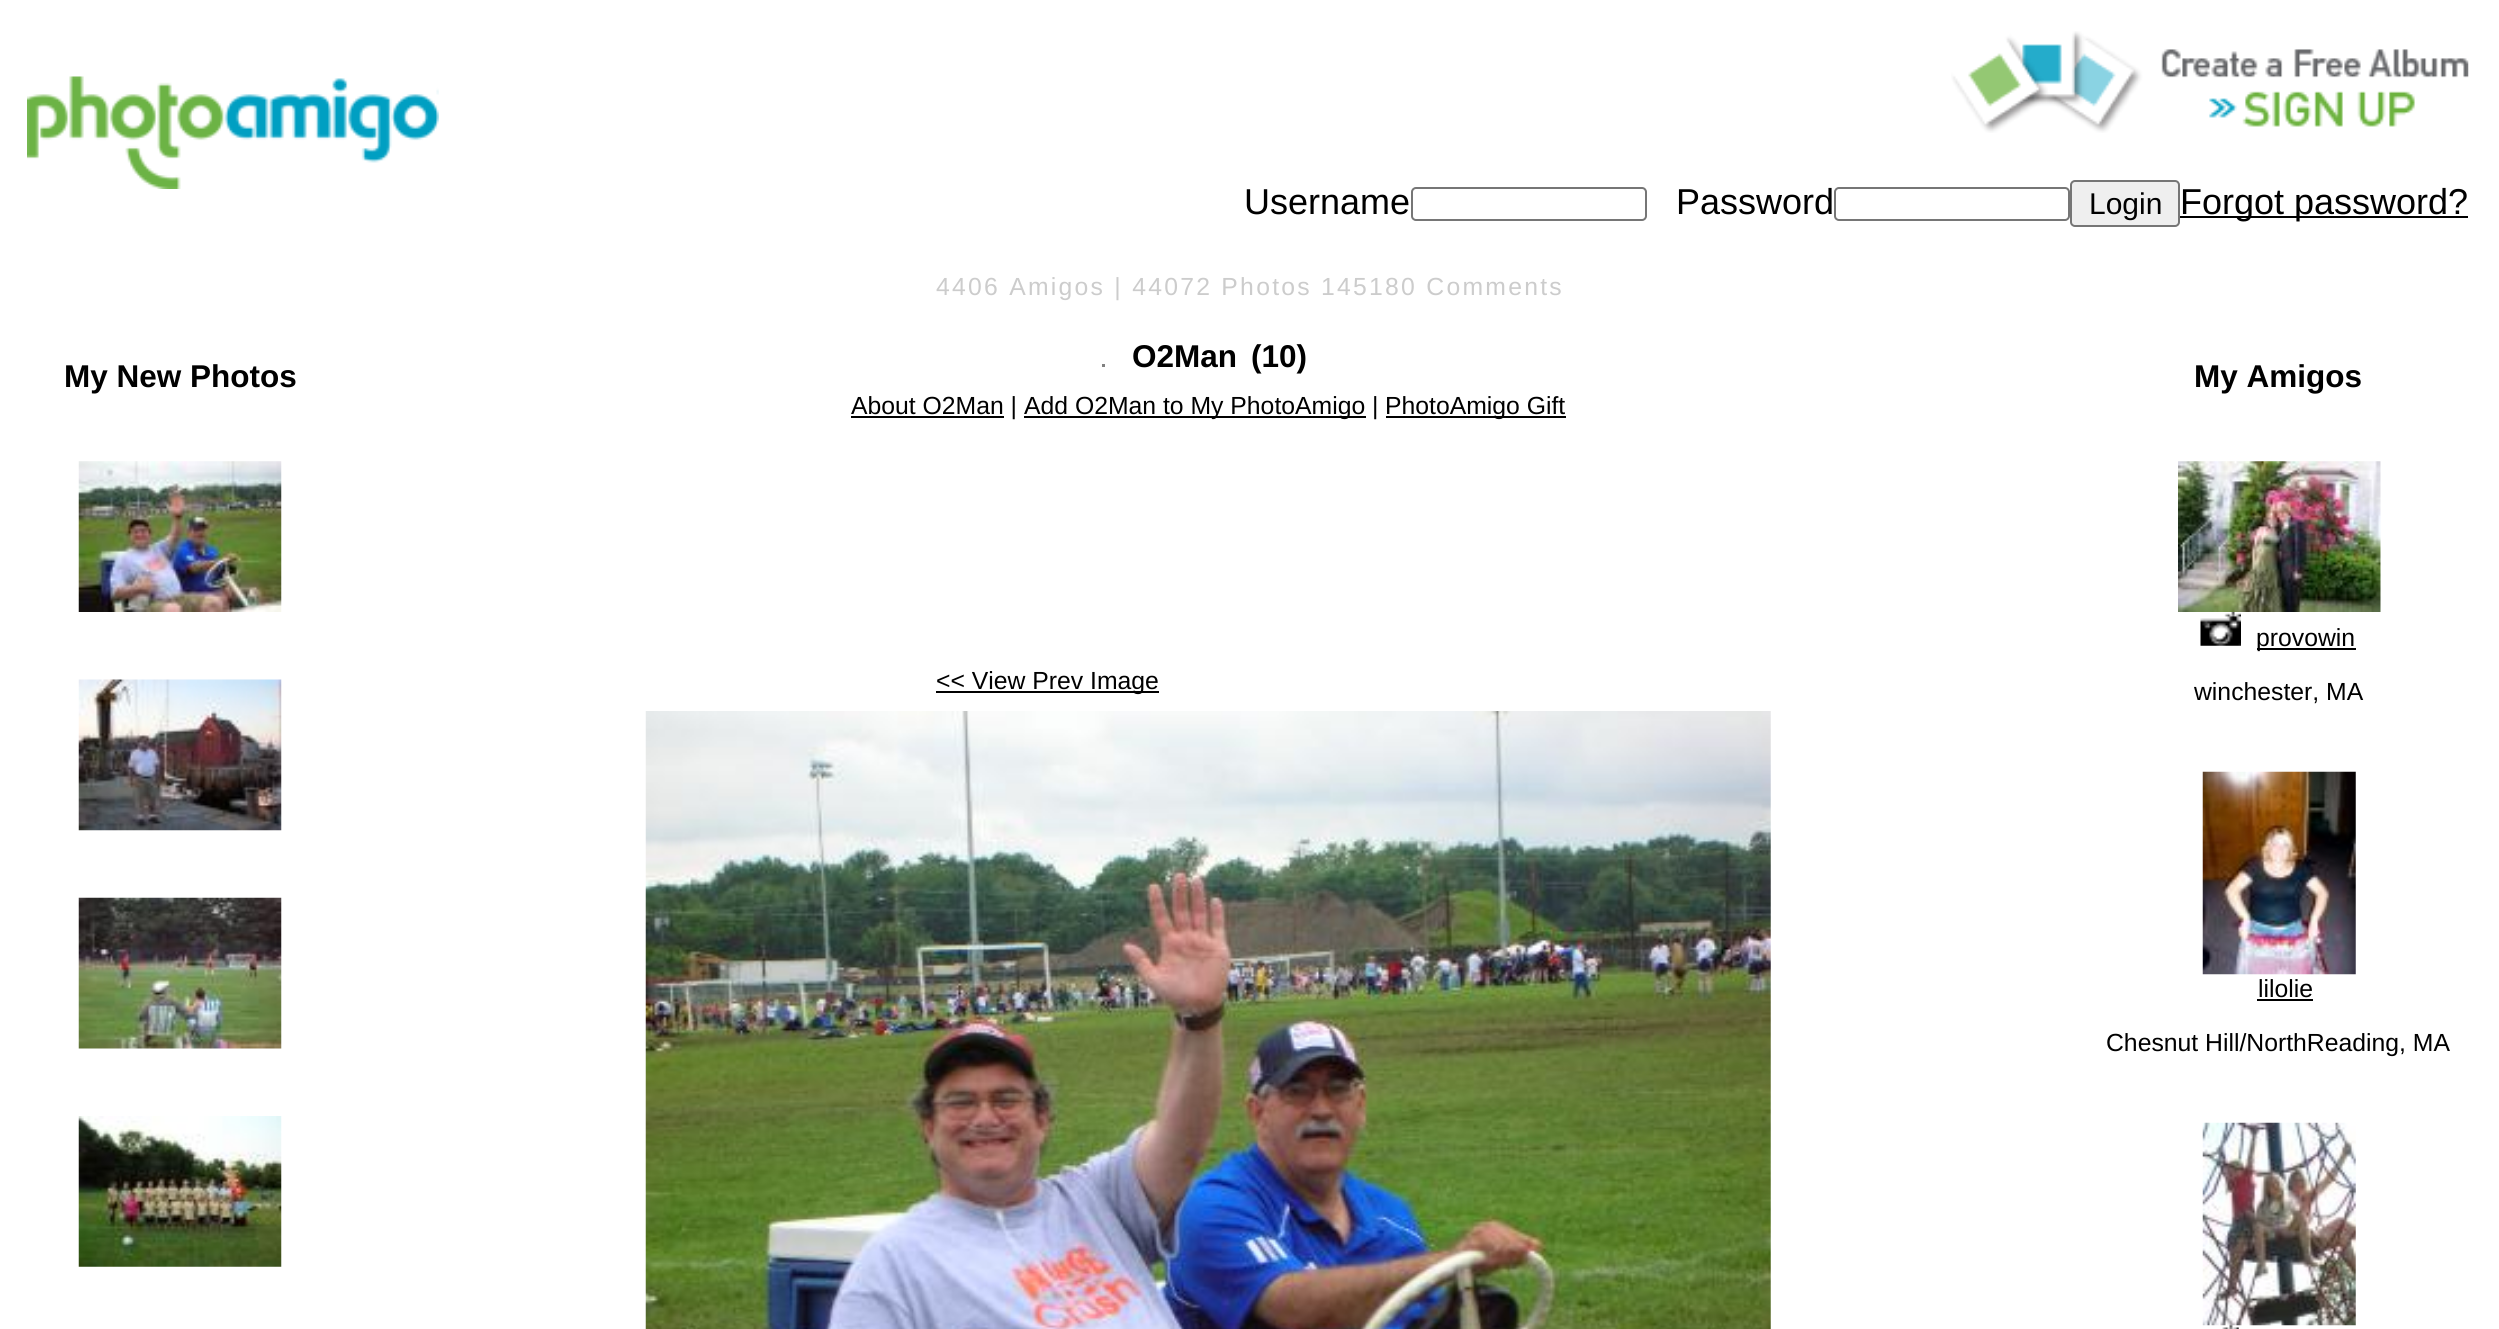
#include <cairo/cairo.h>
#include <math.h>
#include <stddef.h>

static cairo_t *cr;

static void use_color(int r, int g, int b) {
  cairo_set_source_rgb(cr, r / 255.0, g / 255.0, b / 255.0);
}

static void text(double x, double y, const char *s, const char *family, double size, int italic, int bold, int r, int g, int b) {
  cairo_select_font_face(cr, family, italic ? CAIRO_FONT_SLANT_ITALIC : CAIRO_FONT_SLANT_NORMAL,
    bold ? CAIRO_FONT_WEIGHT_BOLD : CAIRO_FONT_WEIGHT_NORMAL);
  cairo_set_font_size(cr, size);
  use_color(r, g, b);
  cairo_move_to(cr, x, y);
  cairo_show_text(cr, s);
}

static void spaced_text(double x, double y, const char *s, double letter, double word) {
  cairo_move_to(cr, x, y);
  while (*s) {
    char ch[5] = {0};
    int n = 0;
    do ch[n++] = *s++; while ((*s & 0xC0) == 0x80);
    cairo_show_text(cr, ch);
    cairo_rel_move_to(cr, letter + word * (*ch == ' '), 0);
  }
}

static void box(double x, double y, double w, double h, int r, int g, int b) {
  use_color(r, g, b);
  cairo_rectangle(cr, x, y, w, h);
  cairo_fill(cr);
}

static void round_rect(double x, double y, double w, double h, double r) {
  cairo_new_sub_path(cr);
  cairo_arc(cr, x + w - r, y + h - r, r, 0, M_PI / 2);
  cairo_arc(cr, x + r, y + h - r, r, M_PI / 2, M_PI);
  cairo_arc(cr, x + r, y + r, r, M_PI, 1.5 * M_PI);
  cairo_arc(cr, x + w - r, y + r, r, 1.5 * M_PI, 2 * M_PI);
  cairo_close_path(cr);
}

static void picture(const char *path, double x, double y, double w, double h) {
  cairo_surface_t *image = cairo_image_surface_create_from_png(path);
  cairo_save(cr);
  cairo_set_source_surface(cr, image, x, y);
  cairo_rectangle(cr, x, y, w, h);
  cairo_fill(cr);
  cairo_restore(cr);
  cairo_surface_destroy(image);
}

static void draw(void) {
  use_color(255, 255, 255);
  cairo_paint(cr);
  picture("img_01.png", 27, 76, 412, 113);
  picture("img_02.png", 1951, 31, 518, 102);
  round_rect(1412, 188, 234, 32, 4);
  use_color(118, 118, 118);
  cairo_stroke(cr);
  round_rect(1835, 188, 234, 32, 4);
  cairo_stroke(cr);
  use_color(239, 239, 239);
  round_rect(2071, 181, 108, 45, 4);
  cairo_fill_preserve(cr);
  use_color(118, 118, 118);
  cairo_stroke(cr);
  box(2180, 216, 288, 2, 0, 0, 0);
  picture("img_03.png", 78, 461, 204, 151);
  picture("img_04.png", 78, 679, 204, 152);
  picture("img_05.png", 78, 897, 204, 152);
  picture("img_06.png", 78, 1116, 204, 151);
  box(1102, 364, 3, 3, 128, 128, 128);
  box(851, 416, 153, 2, 0, 0, 0);
  box(1024, 416, 342, 2, 0, 0, 0);
  box(1386, 416, 180, 2, 0, 0, 0);
  box(936, 691, 223, 2, 0, 0, 0);
  picture("img_07.png", 645, 711, 1126, 618);
  picture("img_08.png", 2178, 461, 203, 151);
  picture("img_09.png", 2200, 612, 41, 34);
  box(2257, 648, 99, 2, 0, 0, 0);
  picture("img_10.png", 2202, 771, 154, 204);
  box(2257, 999, 56, 2, 0, 0, 0);
  picture("img_11.png", 2202, 1122, 154, 204);
  picture("img_12.png", 2222, 1325, 17, 4);
  text(1244, 214, "Username", "Liberation Sans", 36, 0, 0, 0, 0, 0);
  text(1676, 214, "Password", "Liberation Sans", 36, 0, 0, 0, 0, 0);
  text(2089, 214, "Login", "Liberation Sans", 30, 0, 0, 0, 0, 0);
  text(2180, 214, "Forgot password?", "Liberation Sans", 36, 0, 0, 0, 0, 0);
  cairo_set_font_size(cr, 24.75);
  use_color(204, 204, 204);
  spaced_text(936, 295, "4406 Amigos | 44072 Photos 145180 Comments", 2.25, 0);
  text(64, 387, "My New Photos", "Liberation Sans", 31.5, 0, 1, 0, 0, 0);
  text(1132, 367, "O2Man", "Liberation Sans", 31.5, 0, 1, 0, 0, 0);
  text(1251, 367, "(10)", "Liberation Sans", 31.5, 0, 1, 0, 0, 0);
  text(851, 414, "About O2Man |", "Liberation Sans", 24.75, 0, 0, 0, 0, 0);
  text(1024, 414, "Add O2Man to My PhotoAmigo |", "Liberation Sans", 24.75, 0, 0, 0, 0, 0);
  text(1385, 414, "PhotoAmigo Gift", "Liberation Sans", 24.75, 0, 0, 0, 0, 0);
  text(936, 689, "<< View Prev Image", "Liberation Sans", 24.75, 0, 0, 0, 0, 0);
  text(2194, 387, "My Amigos", "Liberation Sans", 31.5, 0, 1, 0, 0, 0);
  text(2256, 646, "provowin", "Liberation Sans", 24.75, 0, 0, 0, 0, 0);
  text(2194, 700, "winchester, MA", "Liberation Sans", 24.75, 0, 0, 0, 0, 0);
  text(2258, 997, "lilolie", "Liberation Sans", 24.75, 0, 0, 0, 0, 0);
  text(2106, 1051, "Chesnut Hill/NorthReading, MA", "Liberation Sans", 24.75, 0, 0, 0, 0, 0);
}

int main(void) {
  cairo_surface_t *surface = cairo_image_surface_create(CAIRO_FORMAT_RGB24, 2499, 1329);
  cr = cairo_create(surface);
  cairo_font_options_t *options = cairo_font_options_create();
  cairo_font_options_set_hint_metrics(options, CAIRO_HINT_METRICS_OFF);
  cairo_font_options_set_hint_style(options, CAIRO_HINT_STYLE_NONE);
  cairo_set_font_options(cr, options);
  cairo_set_miter_limit(cr, 4);
  draw();
  cairo_surface_write_to_png(surface, "out.png");
  cairo_font_options_destroy(options);
  cairo_destroy(cr);
  cairo_surface_destroy(surface);
  return 0;
}
